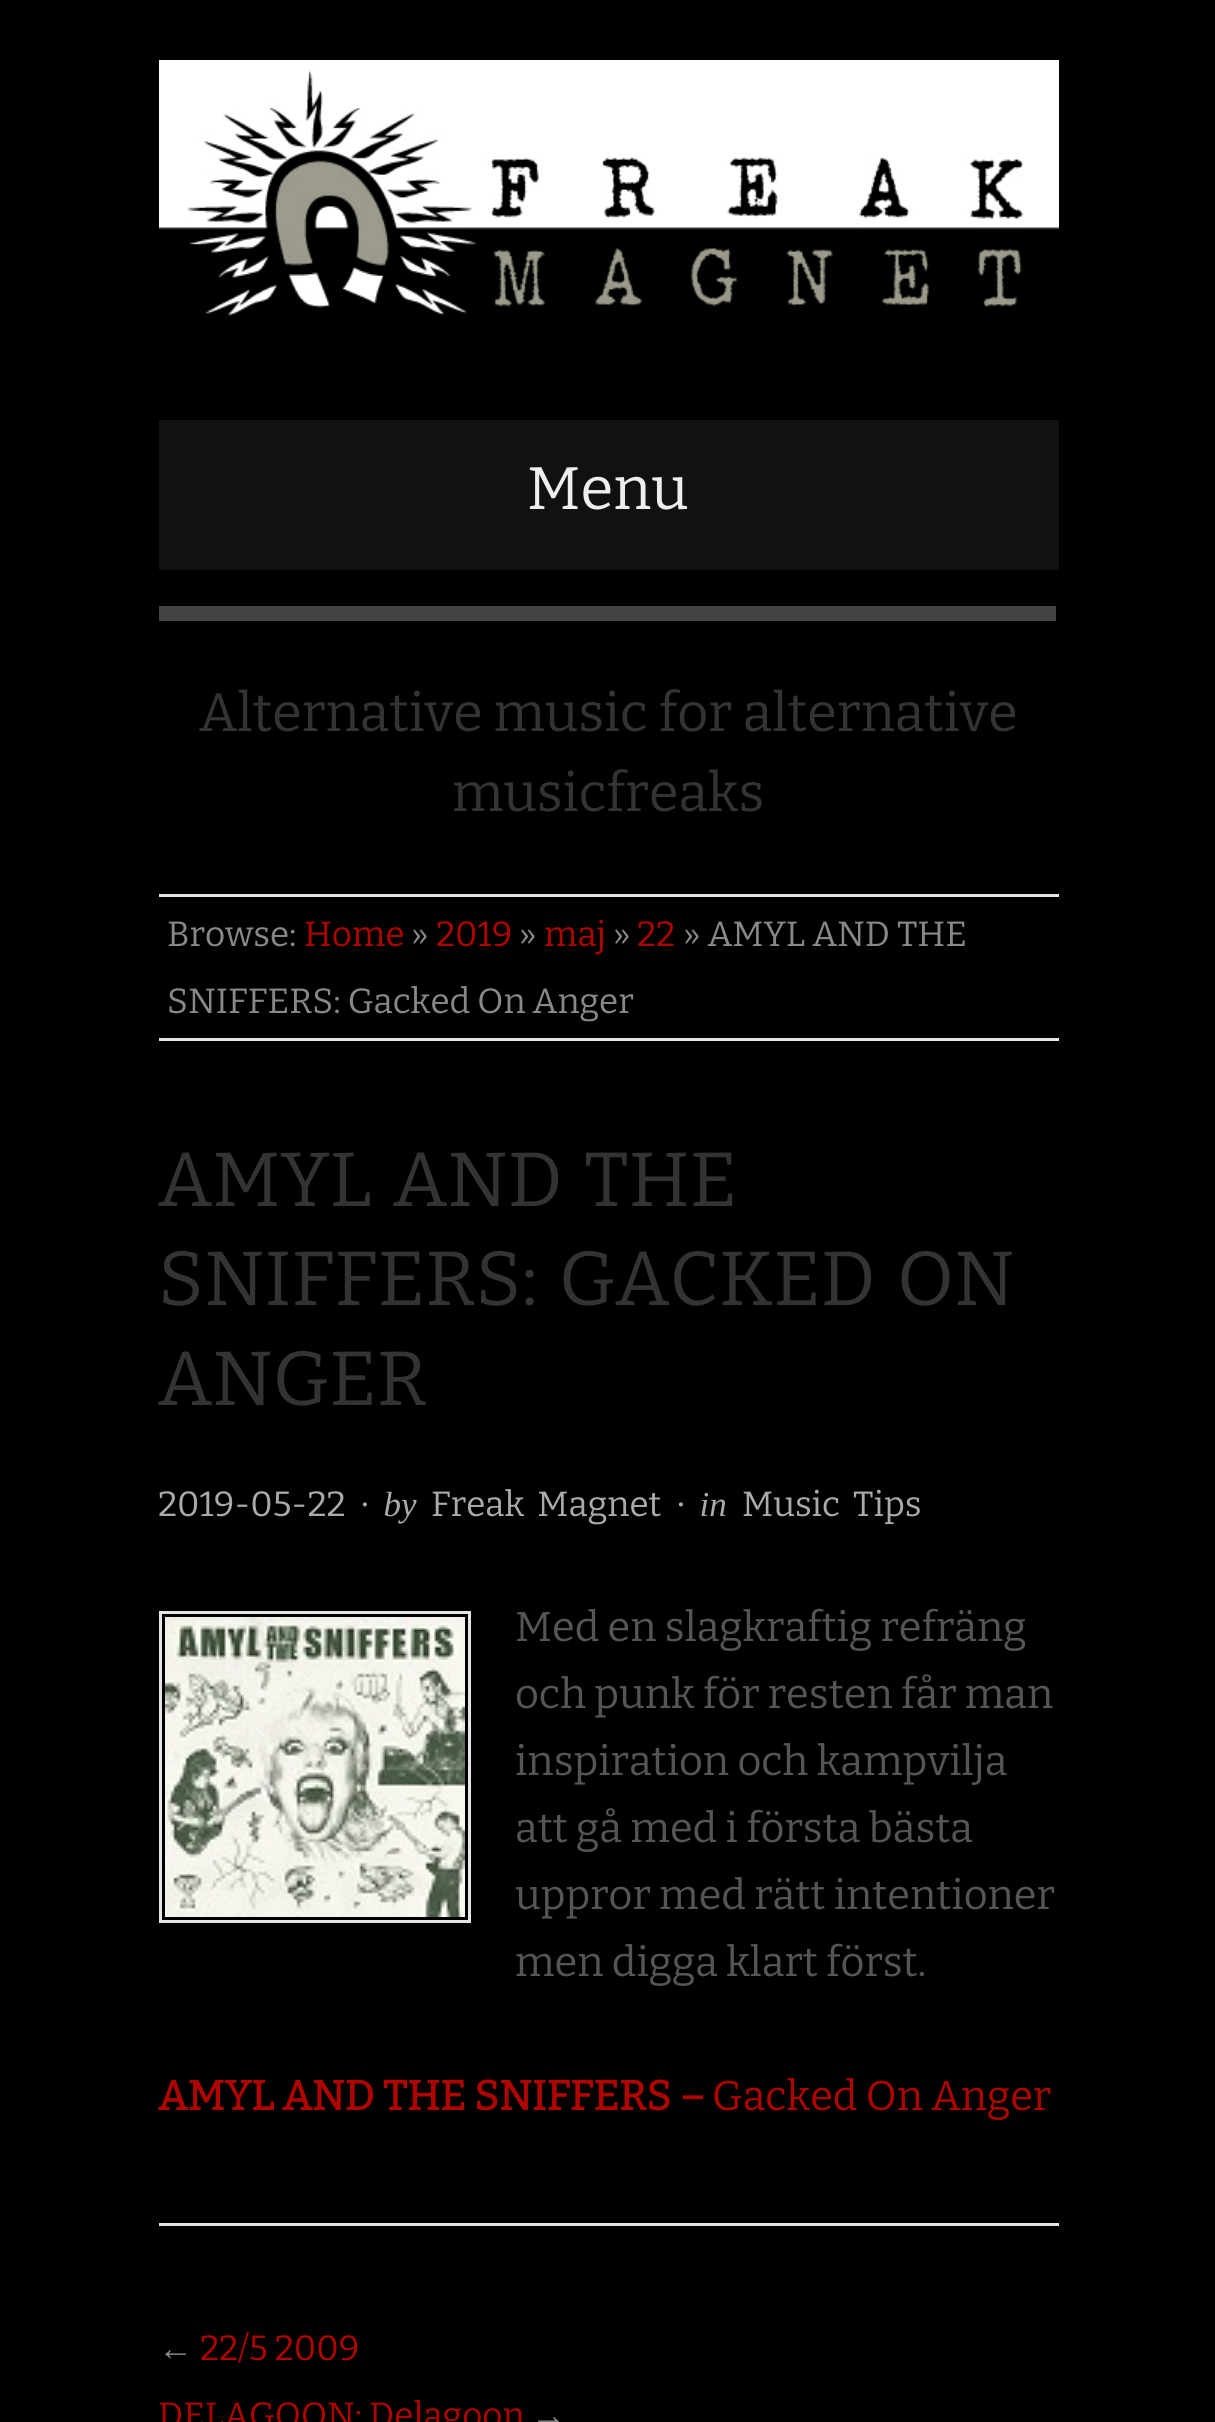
#include <cairo/cairo.h>
#include <math.h>
#include <stddef.h>

static cairo_t *cr;

static void use_color(int r, int g, int b) {
  cairo_set_source_rgb(cr, r / 255.0, g / 255.0, b / 255.0);
}

static void text(double x, double y, const char *s, const char *family, double size, int italic, int bold, int r, int g, int b) {
  cairo_select_font_face(cr, family, italic ? CAIRO_FONT_SLANT_ITALIC : CAIRO_FONT_SLANT_NORMAL,
    bold ? CAIRO_FONT_WEIGHT_BOLD : CAIRO_FONT_WEIGHT_NORMAL);
  cairo_set_font_size(cr, size);
  use_color(r, g, b);
  cairo_move_to(cr, x, y);
  cairo_show_text(cr, s);
}

static void spaced_text(double x, double y, const char *s, double letter, double word) {
  cairo_move_to(cr, x, y);
  while (*s) {
    char ch[5] = {0};
    int n = 0;
    do ch[n++] = *s++; while ((*s & 0xC0) == 0x80);
    cairo_show_text(cr, ch);
    cairo_rel_move_to(cr, letter + word * (*ch == ' '), 0);
  }
}

static void box(double x, double y, double w, double h, int r, int g, int b) {
  use_color(r, g, b);
  cairo_rectangle(cr, x, y, w, h);
  cairo_fill(cr);
}

static void picture(const char *path, double x, double y, double w, double h) {
  cairo_surface_t *image = cairo_image_surface_create_from_png(path);
  cairo_save(cr);
  cairo_set_source_surface(cr, image, x, y);
  cairo_rectangle(cr, x, y, w, h);
  cairo_fill(cr);
  cairo_restore(cr);
  cairo_surface_destroy(image);
}

static void draw(void) {
  use_color(0, 0, 0);
  cairo_paint(cr);
  picture("img_01.png", 159, 60, 900, 256);
  box(159, 420, 900, 150, 17, 17, 17);
  box(159, 606, 897, 15, 68, 68, 68);
  box(159, 894, 900, 3, 229, 229, 229);
  box(159, 1038, 900, 3, 229, 229, 229);
  box(159, 2223, 900, 3, 229, 229, 229);
  cairo_rectangle(cr, 160.5, 1612.5, 309, 309);
  cairo_set_line_width(cr, 3);
  cairo_stroke(cr);
  picture("img_02.png", 165, 1617, 300, 300);
  text(527, 509, "Menu", "Bitter Thin", 60, 0, 0, 238, 238, 238);
  text(199, 731, "Alternative music for alternative", "Bitter Thin", 53.9, 0, 0, 51, 51, 51);
  text(452, 811, "musicfreaks", "Bitter Thin", 53.9, 0, 0, 51, 51, 51);
  text(167, 946, "Browse:", "Bitter Thin", 35, 0, 0, 136, 136, 136);
  text(304, 946, "Home", "Bitter Thin", 35, 0, 0, 175, 5, 0);
  text(411, 946, "»", "Bitter Thin", 35, 0, 0, 136, 136, 136);
  text(436, 946, "2019", "Bitter Thin", 35, 0, 0, 175, 5, 0);
  text(519, 946, "»", "Bitter Thin", 35, 0, 0, 136, 136, 136);
  text(544, 946, "maj", "Bitter Thin", 35, 0, 0, 175, 5, 0);
  text(613, 946, "»", "Bitter Thin", 35, 0, 0, 136, 136, 136);
  text(637, 946, "22", "Bitter Thin", 35, 0, 0, 175, 5, 0);
  text(683, 946, "» AMYL AND THE", "Bitter Thin", 35, 0, 0, 136, 136, 136);
  text(167, 1013, "SNIFFERS: Gacked On Anger", "Bitter Thin", 35, 0, 0, 136, 136, 136);
  cairo_set_font_size(cr, 76.5);
  use_color(51, 51, 51);
  spaced_text(158, 1206, "AMYL AND THE", 0, 6);
  spaced_text(158, 1305, "SNIFFERS: GACKED ON", 0, 6);
  text(158, 1405, "ANGER", "Bitter Thin", 76.5, 0, 0, 51, 51, 51);
  text(158, 1516, "2019-05-22", "Bitter Thin", 35, 0, 0, 170, 170, 170);
  cairo_select_font_face(cr, "Liberation Serif", CAIRO_FONT_SLANT_ITALIC, CAIRO_FONT_WEIGHT_NORMAL);
  spaced_text(360, 1516, "· by", 0, 6);
  cairo_select_font_face(cr, "Bitter Thin", CAIRO_FONT_SLANT_NORMAL, CAIRO_FONT_WEIGHT_NORMAL);
  spaced_text(431, 1516, "Freak Magnet", 0, 6);
  cairo_select_font_face(cr, "Liberation Serif", CAIRO_FONT_SLANT_ITALIC, CAIRO_FONT_WEIGHT_NORMAL);
  spaced_text(676, 1516, "· in", 0, 6);
  cairo_select_font_face(cr, "Bitter Thin", CAIRO_FONT_SLANT_NORMAL, CAIRO_FONT_WEIGHT_NORMAL);
  spaced_text(742, 1516, "Music Tips", 0, 6);
  text(515, 1641, "Med en slagkraftig refräng", "Bitter Thin", 41.5, 0, 0, 85, 85, 85);
  text(515, 1708, "och punk för resten får man", "Bitter Thin", 41.5, 0, 0, 85, 85, 85);
  text(515, 1775, "inspiration och kampvilja", "Bitter Thin", 41.5, 0, 0, 85, 85, 85);
  text(515, 1842, "att gå med i första bästa", "Bitter Thin", 41.5, 0, 0, 85, 85, 85);
  text(515, 1909, "uppror med rätt intentioner", "Bitter Thin", 41.5, 0, 0, 85, 85, 85);
  text(515, 1976, "men digga klart först.", "Bitter Thin", 41.5, 0, 0, 85, 85, 85);
  text(158, 2110, "AMYL AND THE SNIFFERS –", "Bitter", 41.5, 0, 1, 175, 5, 0);
  text(712, 2110, "Gacked On Anger", "Bitter Thin", 41.5, 0, 0, 175, 5, 0);
  text(158, 2360, "←", "Liberation Serif", 35, 0, 0, 136, 136, 136);
  text(200, 2360, "22/5 2009", "Bitter Thin", 35, 0, 0, 175, 5, 0);
  text(158, 2427, "DELAGOON: Delagoon", "Bitter Thin", 35, 0, 0, 175, 5, 0);
  text(531, 2427, "→", "Liberation Serif", 35, 0, 0, 136, 136, 136);
}

int main(void) {
  cairo_surface_t *surface = cairo_image_surface_create(CAIRO_FORMAT_RGB24, 1215, 2422);
  cr = cairo_create(surface);
  cairo_font_options_t *options = cairo_font_options_create();
  cairo_font_options_set_hint_metrics(options, CAIRO_HINT_METRICS_OFF);
  cairo_font_options_set_hint_style(options, CAIRO_HINT_STYLE_NONE);
  cairo_set_font_options(cr, options);
  cairo_set_miter_limit(cr, 4);
  draw();
  cairo_surface_write_to_png(surface, "out.png");
  cairo_font_options_destroy(options);
  cairo_destroy(cr);
  cairo_surface_destroy(surface);
  return 0;
}
